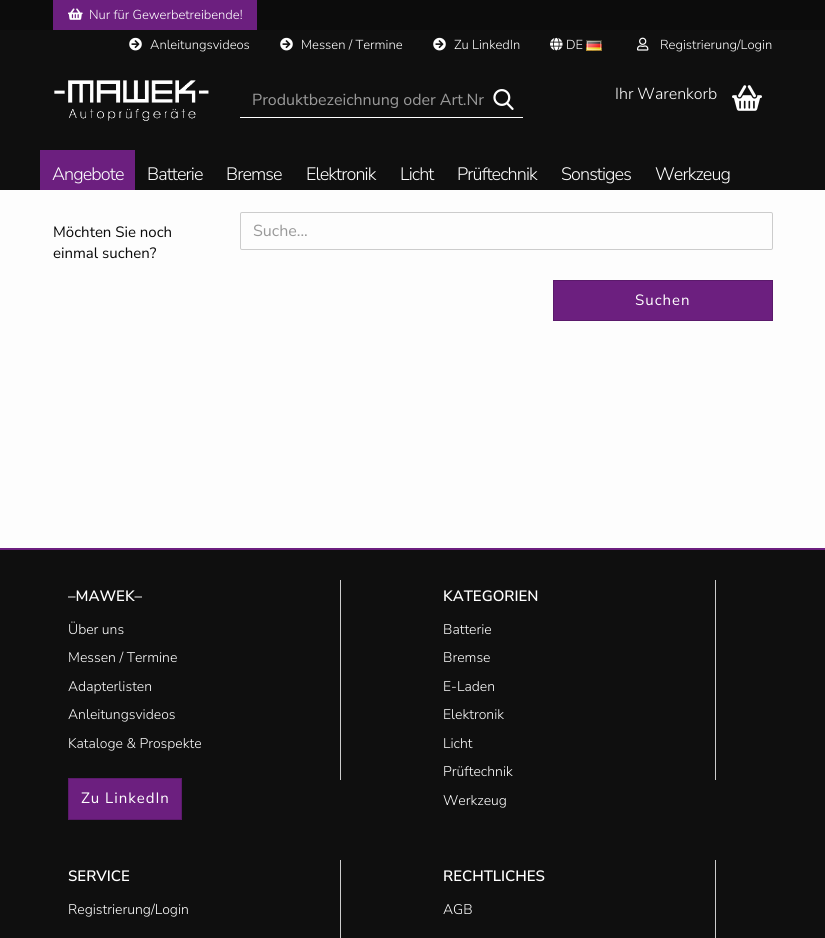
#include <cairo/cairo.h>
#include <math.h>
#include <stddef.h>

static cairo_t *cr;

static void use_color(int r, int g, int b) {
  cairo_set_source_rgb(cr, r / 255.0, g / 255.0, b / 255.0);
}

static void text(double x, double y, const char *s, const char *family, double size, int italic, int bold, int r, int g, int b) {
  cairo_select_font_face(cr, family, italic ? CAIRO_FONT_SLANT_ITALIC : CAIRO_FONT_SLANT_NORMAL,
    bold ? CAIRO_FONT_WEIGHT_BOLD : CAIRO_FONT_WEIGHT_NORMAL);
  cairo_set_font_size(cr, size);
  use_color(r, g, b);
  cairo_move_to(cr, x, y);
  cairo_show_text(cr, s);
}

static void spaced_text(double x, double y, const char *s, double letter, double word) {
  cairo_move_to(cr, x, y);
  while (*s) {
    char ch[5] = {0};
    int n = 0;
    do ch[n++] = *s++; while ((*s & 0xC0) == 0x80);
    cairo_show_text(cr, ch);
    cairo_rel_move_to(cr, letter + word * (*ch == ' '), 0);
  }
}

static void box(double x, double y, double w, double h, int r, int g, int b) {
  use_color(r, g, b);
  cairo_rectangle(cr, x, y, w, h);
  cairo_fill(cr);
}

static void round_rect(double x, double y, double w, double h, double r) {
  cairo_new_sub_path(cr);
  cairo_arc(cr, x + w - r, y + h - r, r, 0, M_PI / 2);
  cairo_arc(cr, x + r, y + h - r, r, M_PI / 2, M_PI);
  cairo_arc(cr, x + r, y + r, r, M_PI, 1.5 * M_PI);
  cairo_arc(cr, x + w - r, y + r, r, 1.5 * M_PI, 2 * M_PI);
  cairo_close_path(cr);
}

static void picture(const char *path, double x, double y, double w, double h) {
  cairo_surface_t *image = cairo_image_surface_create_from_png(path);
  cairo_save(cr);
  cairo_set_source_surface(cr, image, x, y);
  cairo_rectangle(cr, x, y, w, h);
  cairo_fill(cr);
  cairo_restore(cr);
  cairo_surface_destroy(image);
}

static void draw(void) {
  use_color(253, 253, 253);
  cairo_paint(cr);
  box(0, 30, 825, 160, 15, 15, 15);
  box(0, 0, 825, 30, 12, 12, 12);
  box(53, 0, 204, 30, 108, 31, 127);
  picture("img_01.png", 68, 8, 15, 12);
  picture("img_02.png", 129, 37, 13, 14);
  picture("img_02.png", 280, 37, 13, 14);
  picture("img_02.png", 433, 37, 13, 14);
  picture("img_03.png", 550, 37, 13, 14);
  picture("img_04.png", 586, 40, 16, 11);
  picture("img_05.png", 637, 37, 12, 14);
  picture("img_06.png", 54, 80, 155, 41);
  box(240, 117, 283, 1, 255, 255, 255);
  picture("img_07.png", 493, 89, 21, 21);
  picture("img_08.png", 732, 85, 30, 26);
  box(40, 150, 95, 40, 108, 31, 127);
  round_rect(240.5, 212.5, 532, 37, 1.5);
  use_color(204, 204, 204);
  cairo_set_line_width(cr, 1);
  cairo_stroke(cr);
  use_color(108, 31, 127);
  cairo_rectangle(cr, 553.5, 280.5, 219, 40);
  cairo_fill_preserve(cr);
  use_color(91, 26, 107);
  cairo_stroke(cr);
  box(0, 550, 825, 388, 15, 15, 15);
  box(0, 548, 825, 2, 108, 31, 127);
  cairo_rectangle(cr, 68.5, 778.5, 113, 41);
  cairo_fill_preserve(cr);
  use_color(91, 26, 107);
  cairo_stroke(cr);
  box(340, 580, 1, 200, 204, 204, 204);
  box(715, 580, 1, 200, 204, 204, 204);
  box(340, 860, 1, 78, 204, 204, 204);
  box(715, 860, 1, 78, 204, 204, 204);
  text(89, 19, "Nur für Gewerbetreibende!", "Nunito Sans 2 ExtraLight", 13, 0, 0, 255, 255, 255);
  text(150, 49, "Anleitungsvideos", "Nunito Sans 2 ExtraLight", 13, 0, 0, 255, 255, 255);
  text(301, 49, "Messen / Termine", "Nunito Sans 2 ExtraLight", 13, 0, 0, 255, 255, 255);
  text(454, 49, "Zu LinkedIn", "Nunito Sans 2 ExtraLight", 13, 0, 0, 255, 255, 255);
  text(566, 49, "DE", "Nunito Sans 2 ExtraLight", 13, 0, 0, 255, 255, 255);
  text(660, 49, "Registrierung/Login", "Nunito Sans 2 ExtraLight", 13, 0, 0, 255, 255, 255);
  text(252, 105, "Produktbezeichnung oder Art.Nr", "Nunito Sans ExtraLight", 16, 0, 0, 153, 153, 153);
  text(615, 99, "Ihr Warenkorb", "Nunito Sans 2 ExtraLight", 16, 0, 0, 255, 255, 255);
  cairo_set_font_size(cr, 18);
  spaced_text(52, 180, "Angebote", -0.9, 0);
  spaced_text(147, 180, "Batterie", -0.9, 0);
  spaced_text(226, 180, "Bremse", -0.9, 0);
  spaced_text(306, 180, "Elektronik", -0.9, 0);
  spaced_text(400, 180, "Licht", -0.9, 0);
  spaced_text(457, 180, "Prüftechnik", -0.9, 0);
  spaced_text(561, 180, "Sonstiges", -0.9, 0);
  spaced_text(655, 180, "Werkzeug", -0.9, 0);
  text(53, 237, "Möchten Sie noch", "Nunito Sans ExtraLight", 15, 0, 0, 10, 10, 10);
  text(53, 258, "einmal suchen?", "Nunito Sans ExtraLight", 15, 0, 0, 10, 10, 10);
  text(253, 236, "Suche...", "Nunito Sans ExtraLight", 16, 0, 0, 153, 153, 153);
  cairo_set_font_size(cr, 15);
  use_color(255, 255, 255);
  spaced_text(635, 305, "Suchen", 1, 0);
  text(68, 601, "–MAWEK–", "Nunito Sans SemiBold", 15, 0, 0, 255, 255, 255);
  text(68, 634, "Über uns", "Nunito Sans 2 ExtraLight", 14, 0, 0, 255, 255, 255);
  text(68, 662, "Messen / Termine", "Nunito Sans 2 ExtraLight", 14, 0, 0, 255, 255, 255);
  text(68, 691, "Adapterlisten", "Nunito Sans 2 ExtraLight", 14, 0, 0, 255, 255, 255);
  text(68, 719, "Anleitungsvideos", "Nunito Sans 2 ExtraLight", 14, 0, 0, 255, 255, 255);
  text(68, 748, "Kataloge & Prospekte", "Nunito Sans 2 ExtraLight", 14, 0, 0, 255, 255, 255);
  cairo_select_font_face(cr, "Nunito Sans ExtraLight", CAIRO_FONT_SLANT_NORMAL, CAIRO_FONT_WEIGHT_NORMAL);
  cairo_set_font_size(cr, 15);
  spaced_text(81, 803, "Zu LinkedIn", 1, 0);
  text(443, 601, "KATEGORIEN", "Nunito Sans SemiBold", 15, 0, 0, 255, 255, 255);
  text(443, 634, "Batterie", "Nunito Sans 2 ExtraLight", 14, 0, 0, 255, 255, 255);
  text(443, 662, "Bremse", "Nunito Sans 2 ExtraLight", 14, 0, 0, 255, 255, 255);
  text(443, 691, "E-Laden", "Nunito Sans 2 ExtraLight", 14, 0, 0, 255, 255, 255);
  text(443, 719, "Elektronik", "Nunito Sans 2 ExtraLight", 14, 0, 0, 255, 255, 255);
  text(443, 748, "Licht", "Nunito Sans 2 ExtraLight", 14, 0, 0, 255, 255, 255);
  text(443, 776, "Prüftechnik", "Nunito Sans 2 ExtraLight", 14, 0, 0, 255, 255, 255);
  text(443, 805, "Werkzeug", "Nunito Sans 2 ExtraLight", 14, 0, 0, 255, 255, 255);
  text(68, 881, "SERVICE", "Nunito Sans SemiBold", 15, 0, 0, 255, 255, 255);
  text(68, 914, "Registrierung/Login", "Nunito Sans 2 ExtraLight", 14, 0, 0, 255, 255, 255);
  text(443, 881, "RECHTLICHES", "Nunito Sans SemiBold", 15, 0, 0, 255, 255, 255);
  text(443, 914, "AGB", "Nunito Sans 2 ExtraLight", 14, 0, 0, 255, 255, 255);
}

int main(void) {
  cairo_surface_t *surface = cairo_image_surface_create(CAIRO_FORMAT_RGB24, 825, 938);
  cr = cairo_create(surface);
  cairo_font_options_t *options = cairo_font_options_create();
  cairo_font_options_set_hint_metrics(options, CAIRO_HINT_METRICS_OFF);
  cairo_font_options_set_hint_style(options, CAIRO_HINT_STYLE_NONE);
  cairo_set_font_options(cr, options);
  cairo_set_miter_limit(cr, 4);
  draw();
  cairo_surface_write_to_png(surface, "out.png");
  cairo_font_options_destroy(options);
  cairo_destroy(cr);
  cairo_surface_destroy(surface);
  return 0;
}
